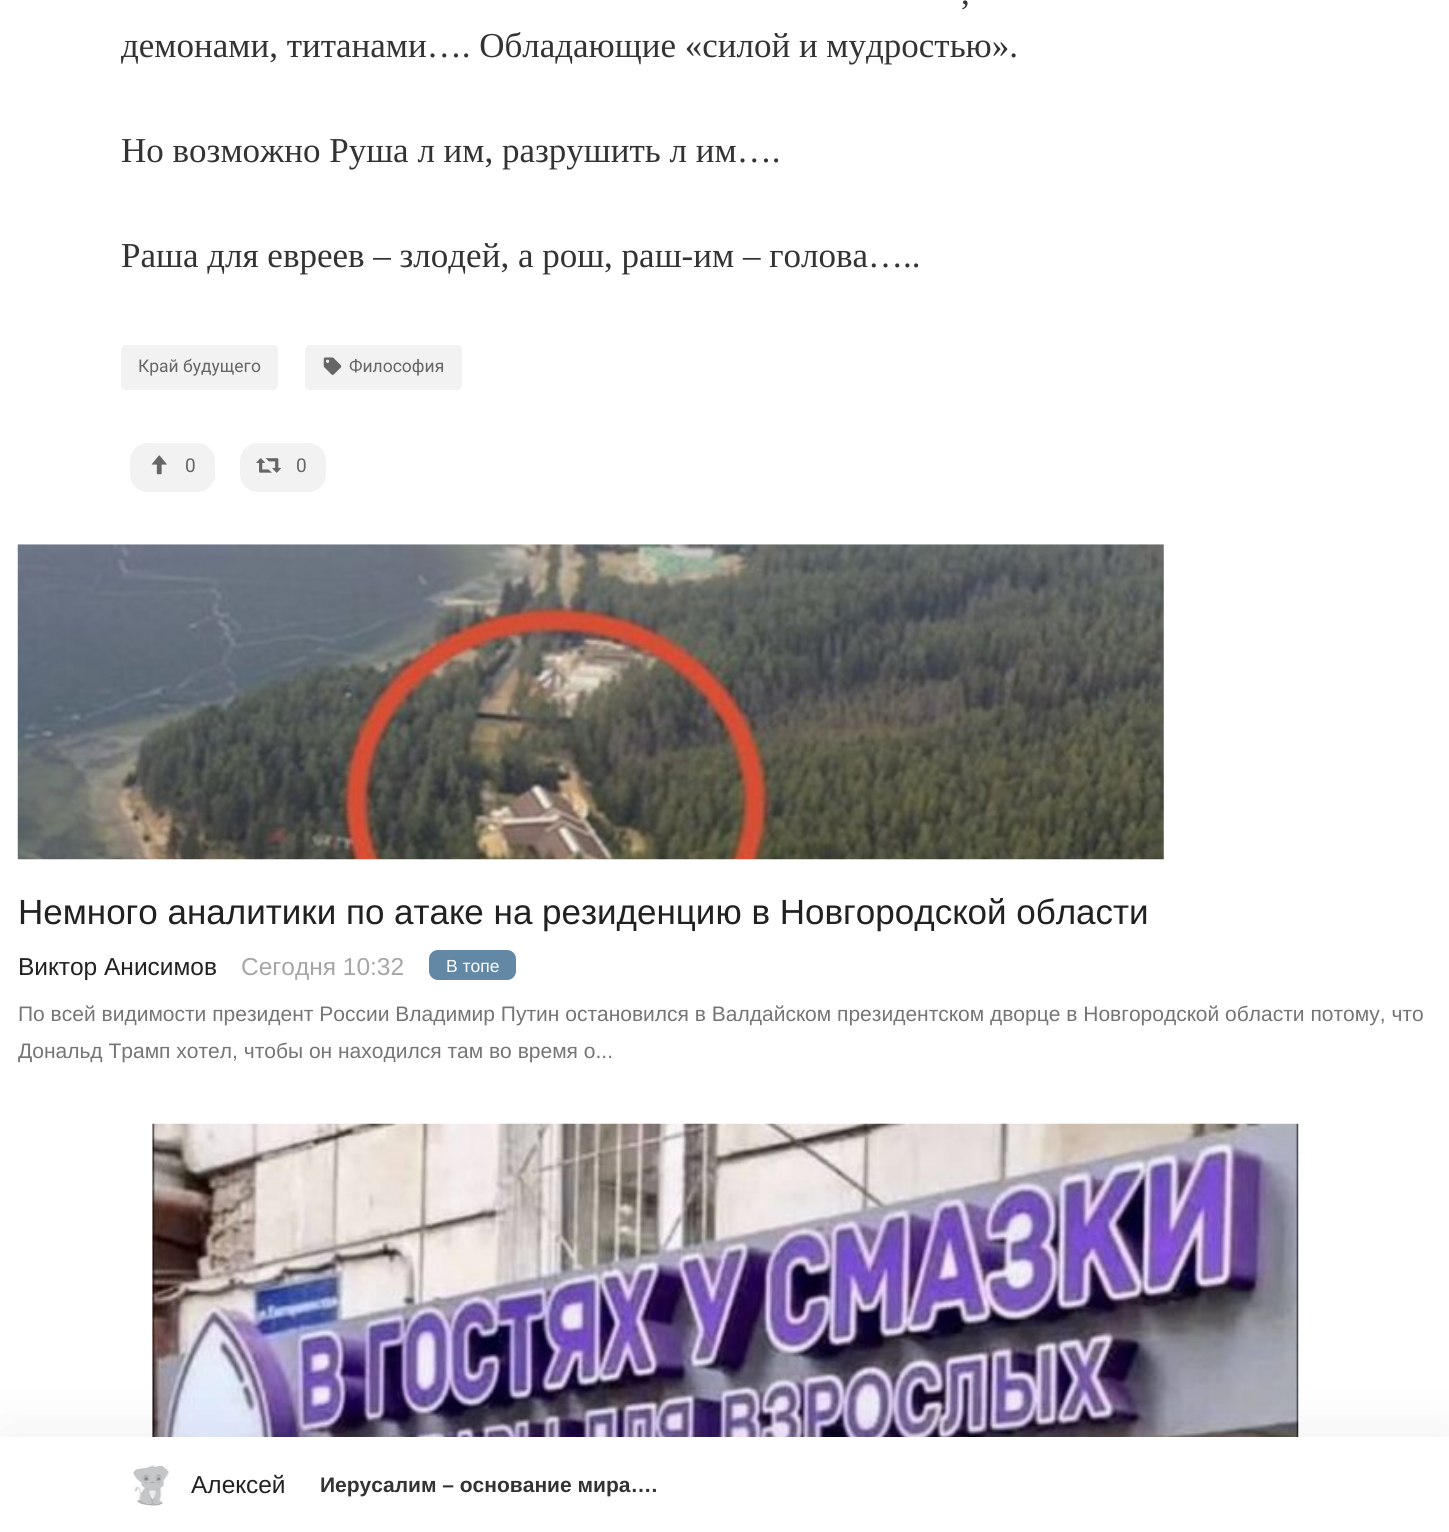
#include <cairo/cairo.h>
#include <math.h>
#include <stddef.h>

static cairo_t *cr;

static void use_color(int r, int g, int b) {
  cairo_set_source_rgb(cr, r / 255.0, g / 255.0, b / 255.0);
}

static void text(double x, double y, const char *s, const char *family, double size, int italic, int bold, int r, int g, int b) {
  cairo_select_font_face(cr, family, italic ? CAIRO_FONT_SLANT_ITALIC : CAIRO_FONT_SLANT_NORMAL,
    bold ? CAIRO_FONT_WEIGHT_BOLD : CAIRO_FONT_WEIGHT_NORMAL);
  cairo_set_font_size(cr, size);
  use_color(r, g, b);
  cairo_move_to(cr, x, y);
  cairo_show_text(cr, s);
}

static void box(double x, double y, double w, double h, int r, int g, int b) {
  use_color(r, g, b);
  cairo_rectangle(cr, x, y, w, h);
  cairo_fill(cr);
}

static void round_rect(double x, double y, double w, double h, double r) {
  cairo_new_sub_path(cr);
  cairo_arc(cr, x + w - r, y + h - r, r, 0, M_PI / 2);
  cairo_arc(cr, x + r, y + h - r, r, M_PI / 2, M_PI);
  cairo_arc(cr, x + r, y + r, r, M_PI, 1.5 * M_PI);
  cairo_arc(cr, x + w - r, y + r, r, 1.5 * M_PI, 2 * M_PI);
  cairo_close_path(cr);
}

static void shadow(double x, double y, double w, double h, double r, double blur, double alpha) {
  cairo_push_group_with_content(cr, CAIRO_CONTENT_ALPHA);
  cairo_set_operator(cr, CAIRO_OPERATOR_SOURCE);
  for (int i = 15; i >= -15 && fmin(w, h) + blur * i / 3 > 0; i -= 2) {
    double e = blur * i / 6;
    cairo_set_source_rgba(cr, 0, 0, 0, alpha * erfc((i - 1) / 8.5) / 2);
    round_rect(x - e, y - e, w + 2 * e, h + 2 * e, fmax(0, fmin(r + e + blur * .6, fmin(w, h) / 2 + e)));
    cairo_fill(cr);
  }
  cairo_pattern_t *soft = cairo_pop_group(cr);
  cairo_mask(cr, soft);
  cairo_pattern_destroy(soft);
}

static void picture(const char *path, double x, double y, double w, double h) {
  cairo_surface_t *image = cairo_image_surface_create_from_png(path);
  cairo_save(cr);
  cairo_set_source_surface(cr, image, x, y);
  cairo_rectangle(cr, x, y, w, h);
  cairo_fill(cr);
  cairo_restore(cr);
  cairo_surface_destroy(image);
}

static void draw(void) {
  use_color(255, 255, 255);
  cairo_paint(cr);
  use_color(242, 242, 242);
  round_rect(121, 345, 157, 45, 5);
  cairo_fill(cr);
  round_rect(305, 345, 157, 45, 5);
  cairo_fill(cr);
  picture("img_01.png", 323, 357, 19, 18);
  round_rect(130, 443, 85, 49, 18);
  cairo_fill(cr);
  picture("img_02.png", 151, 455, 16, 20);
  round_rect(240, 443, 86, 49, 18);
  cairo_fill(cr);
  picture("img_03.png", 256, 458, 25, 15);
  picture("img_04.png", 17, 544, 1147, 316);
  use_color(98, 136, 165);
  round_rect(429, 950, 87, 30, 9);
  cairo_fill(cr);
  picture("img_05.png", 152, 1123, 1147, 314);
  use_color(0, 0, 0);
  shadow(2, 1439, 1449, 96, 0, 35, 0.07);
  box(0, 1437, 1449, 95, 255, 255, 255);
  picture("img_06.png", 133, 1465, 36, 41);
  text(961, 4, ",", "Liberation Serif", 35, 0, 0, 51, 51, 51);
  text(121, 57, "демонами, титанами…. Обладающие «силой и мудростью».", "Liberation Serif", 35, 0, 0, 51, 51, 51);
  text(121, 162, "Но возможно Руша л им, разрушить л им….", "Liberation Serif", 35, 0, 0, 51, 51, 51);
  text(121, 267, "Раша для евреев – злодей, а рош, раш-им – голова…..", "Liberation Serif", 35, 0, 0, 51, 51, 51);
  text(138, 372, "Край будущего", "Roboto", 17.5, 0, 0, 102, 102, 102);
  text(349, 372, "Философия", "Roboto", 17.5, 0, 0, 102, 102, 102);
  text(185, 472, "0", "Roboto", 19, 0, 0, 102, 102, 102);
  text(296, 472, "0", "Roboto", 19, 0, 0, 102, 102, 102);
  text(18, 924, "Немного аналитики по атаке на резиденцию в Новгородской области", "Liberation Sans", 35, 0, 0, 33, 33, 33);
  text(18, 975, "Виктор Анисимов", "Liberation Sans", 24.5, 0, 0, 33, 33, 33);
  text(241, 975, "Сегодня 10:32", "Liberation Sans", 24.5, 0, 0, 166, 166, 166);
  text(446, 972, "В топе", "Liberation Sans", 17.5, 0, 0, 255, 255, 255);
  text(18, 1021, "По всей видимости президент России Владимир Путин остановился в Валдайском президентском дворце в Новгородской области потому, что", "Liberation Sans", 21, 0, 0, 117, 117, 117);
  text(18, 1058, "Дональд Трамп хотел, чтобы он находился там во время о...", "Liberation Sans", 21, 0, 0, 117, 117, 117);
  text(191, 1493, "Алексей", "Liberation Sans", 24.5, 0, 0, 33, 33, 33);
  text(320, 1492, "Иерусалим – основание мира….", "Liberation Sans", 21, 0, 1, 51, 51, 51);
}

int main(void) {
  cairo_surface_t *surface = cairo_image_surface_create(CAIRO_FORMAT_RGB24, 1449, 1532);
  cr = cairo_create(surface);
  cairo_font_options_t *options = cairo_font_options_create();
  cairo_font_options_set_hint_metrics(options, CAIRO_HINT_METRICS_OFF);
  cairo_font_options_set_hint_style(options, CAIRO_HINT_STYLE_NONE);
  cairo_set_font_options(cr, options);
  cairo_set_miter_limit(cr, 4);
  draw();
  cairo_surface_write_to_png(surface, "out.png");
  cairo_font_options_destroy(options);
  cairo_destroy(cr);
  cairo_surface_destroy(surface);
  return 0;
}
